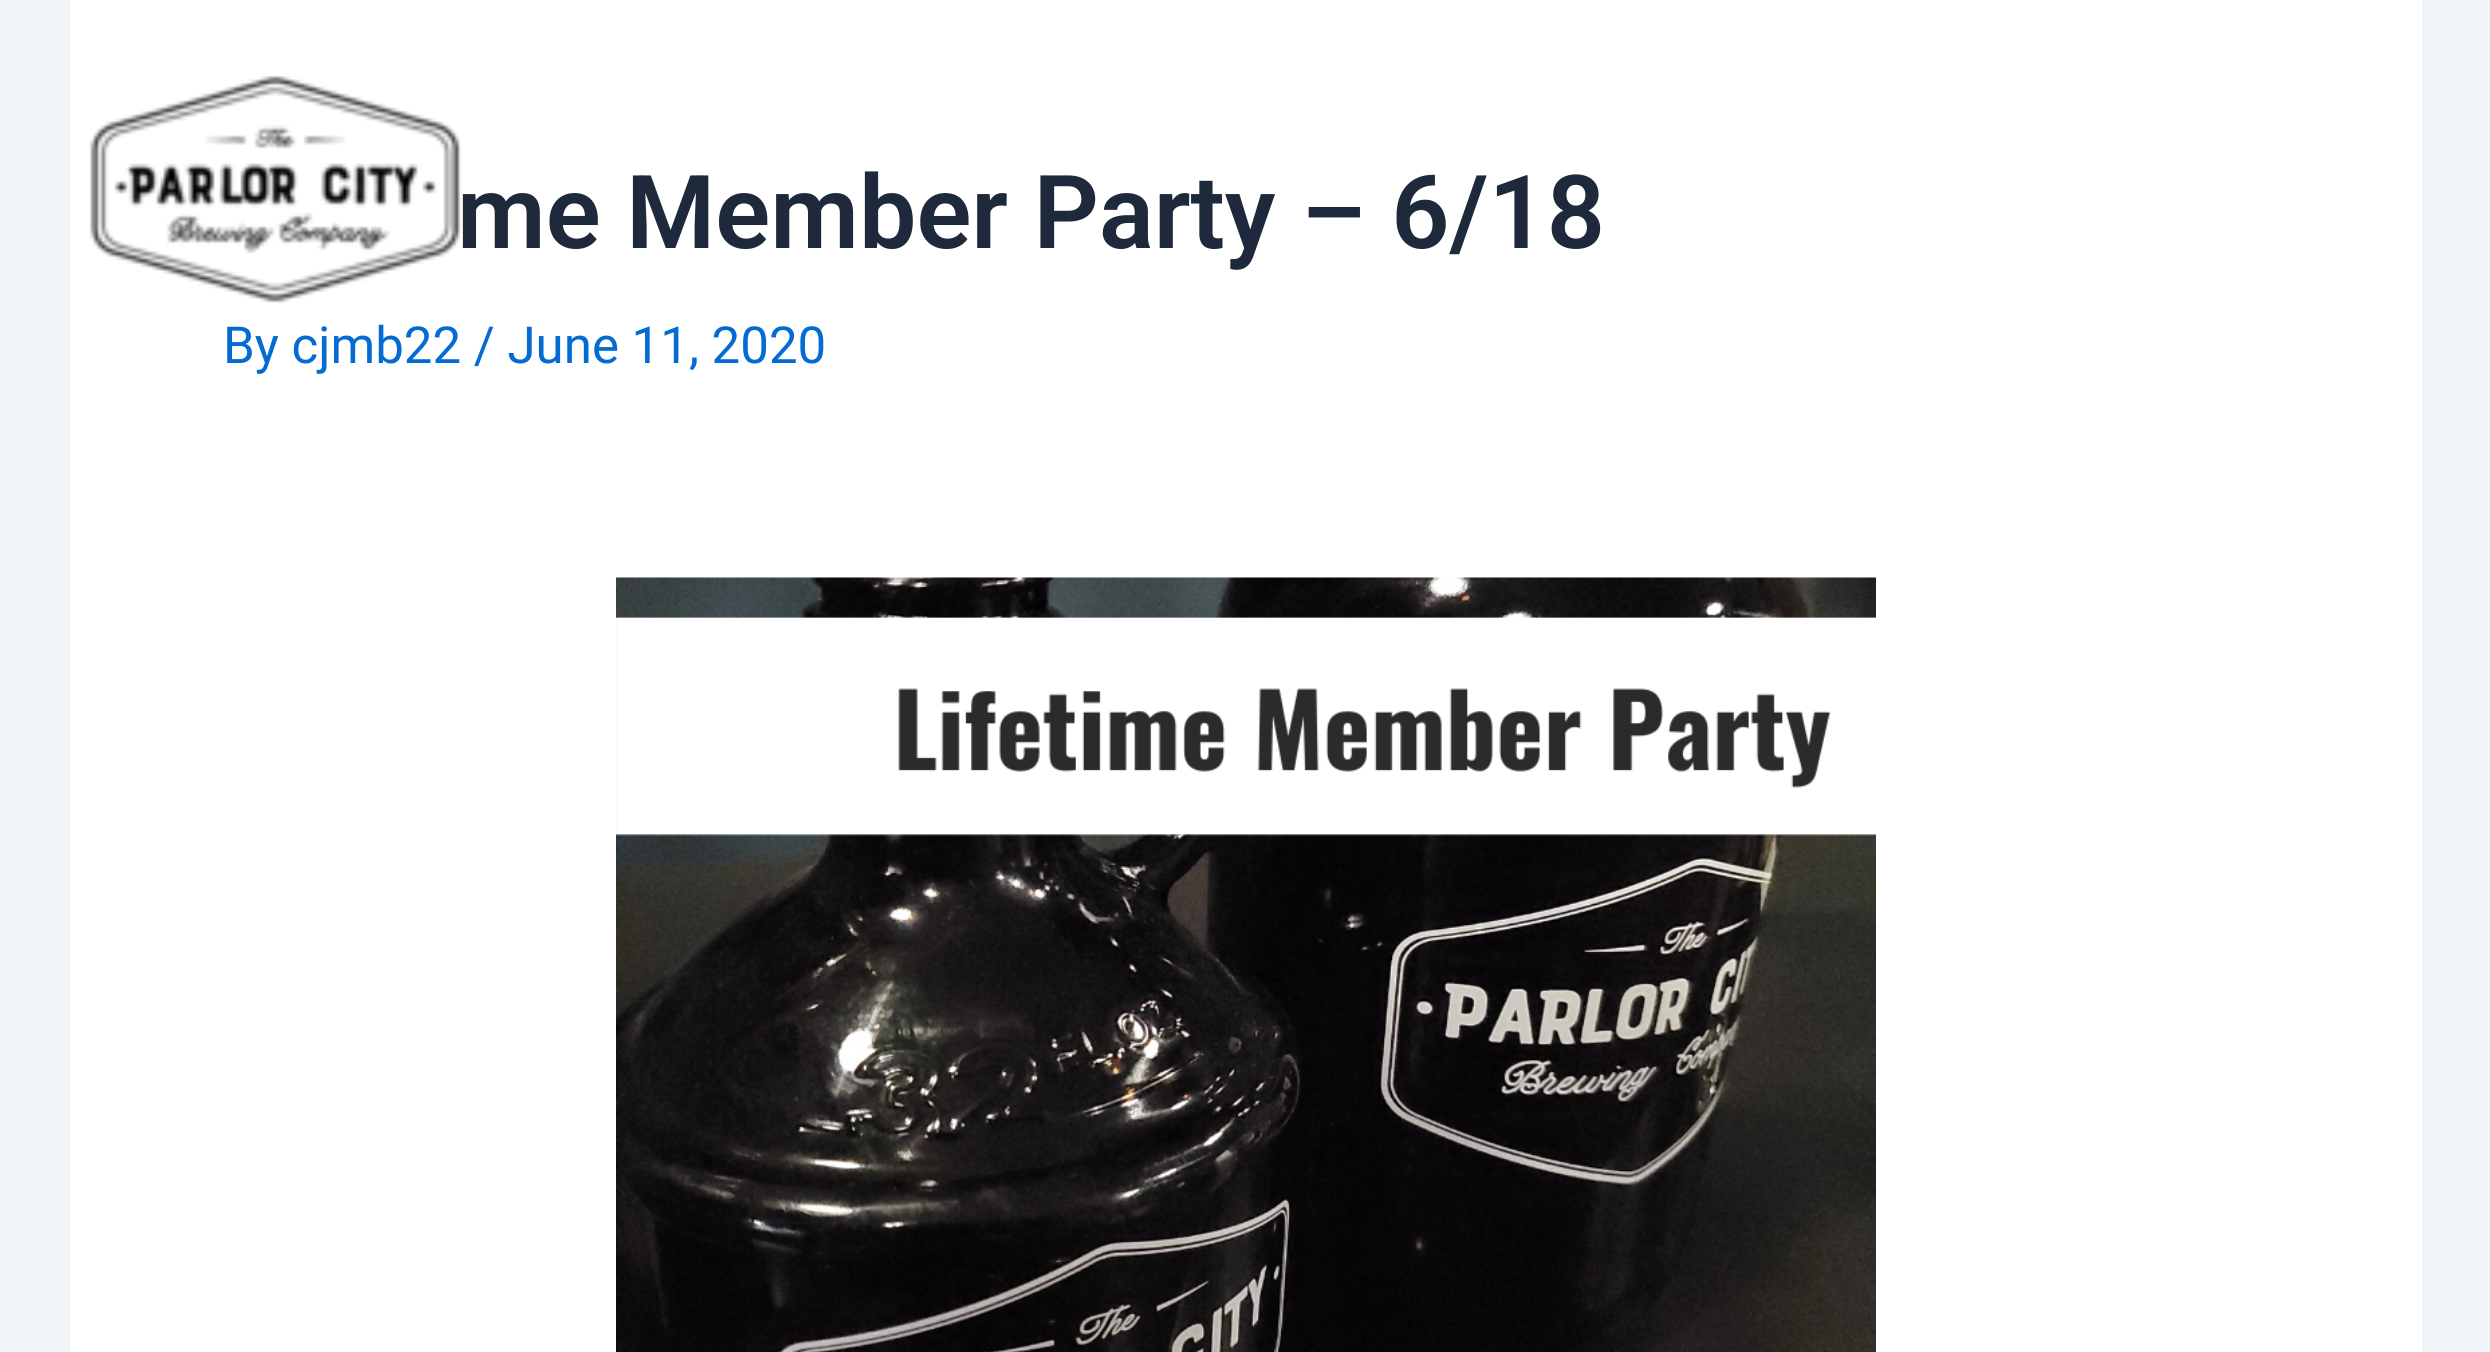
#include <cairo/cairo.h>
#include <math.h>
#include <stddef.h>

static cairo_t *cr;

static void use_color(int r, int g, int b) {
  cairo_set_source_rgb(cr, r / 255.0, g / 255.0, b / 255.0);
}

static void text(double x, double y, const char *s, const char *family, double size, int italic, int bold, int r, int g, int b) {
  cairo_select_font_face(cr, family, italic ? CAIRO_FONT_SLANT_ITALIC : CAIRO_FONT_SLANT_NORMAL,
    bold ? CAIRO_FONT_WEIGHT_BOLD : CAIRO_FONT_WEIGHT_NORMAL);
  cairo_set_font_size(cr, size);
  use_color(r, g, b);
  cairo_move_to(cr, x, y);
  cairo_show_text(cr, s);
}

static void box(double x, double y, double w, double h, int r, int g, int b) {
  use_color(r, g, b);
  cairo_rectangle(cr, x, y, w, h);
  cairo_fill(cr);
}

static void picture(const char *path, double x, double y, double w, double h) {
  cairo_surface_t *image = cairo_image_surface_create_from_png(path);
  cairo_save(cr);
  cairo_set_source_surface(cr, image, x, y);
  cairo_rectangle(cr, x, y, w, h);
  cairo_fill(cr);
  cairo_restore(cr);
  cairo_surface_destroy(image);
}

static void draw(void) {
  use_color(240, 245, 250);
  cairo_paint(cr);
  box(70, 0, 2352, 1352, 255, 255, 255);
  picture("img_01.png", 89, 75, 373, 228);
  picture("img_02.png", 616, 577, 1260, 775);
  text(457, 248, "me Member Party – 6/18", "Roboto SemiBold", 102.1, 0, 0, 30, 41, 59);
  text(223, 363, "By cjmb22 / June 11, 2020", "Roboto", 51, 0, 0, 4, 107, 210);
}

int main(void) {
  cairo_surface_t *surface = cairo_image_surface_create(CAIRO_FORMAT_RGB24, 2490, 1352);
  cr = cairo_create(surface);
  cairo_font_options_t *options = cairo_font_options_create();
  cairo_font_options_set_hint_metrics(options, CAIRO_HINT_METRICS_OFF);
  cairo_font_options_set_hint_style(options, CAIRO_HINT_STYLE_NONE);
  cairo_set_font_options(cr, options);
  cairo_set_miter_limit(cr, 4);
  draw();
  cairo_surface_write_to_png(surface, "out.png");
  cairo_font_options_destroy(options);
  cairo_destroy(cr);
  cairo_surface_destroy(surface);
  return 0;
}
